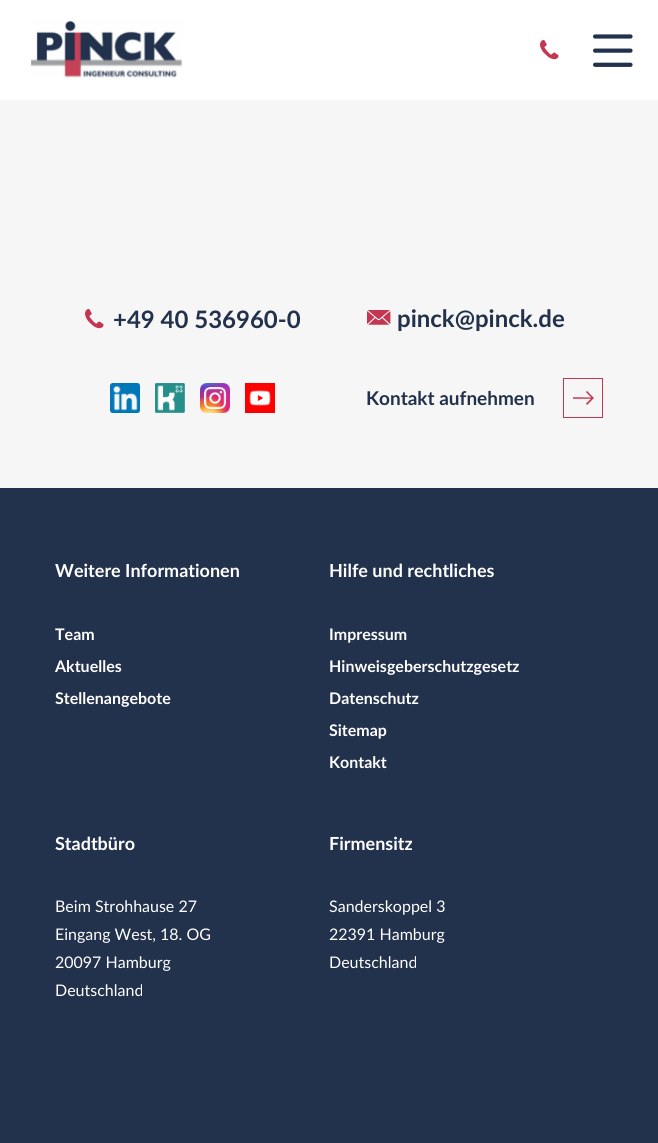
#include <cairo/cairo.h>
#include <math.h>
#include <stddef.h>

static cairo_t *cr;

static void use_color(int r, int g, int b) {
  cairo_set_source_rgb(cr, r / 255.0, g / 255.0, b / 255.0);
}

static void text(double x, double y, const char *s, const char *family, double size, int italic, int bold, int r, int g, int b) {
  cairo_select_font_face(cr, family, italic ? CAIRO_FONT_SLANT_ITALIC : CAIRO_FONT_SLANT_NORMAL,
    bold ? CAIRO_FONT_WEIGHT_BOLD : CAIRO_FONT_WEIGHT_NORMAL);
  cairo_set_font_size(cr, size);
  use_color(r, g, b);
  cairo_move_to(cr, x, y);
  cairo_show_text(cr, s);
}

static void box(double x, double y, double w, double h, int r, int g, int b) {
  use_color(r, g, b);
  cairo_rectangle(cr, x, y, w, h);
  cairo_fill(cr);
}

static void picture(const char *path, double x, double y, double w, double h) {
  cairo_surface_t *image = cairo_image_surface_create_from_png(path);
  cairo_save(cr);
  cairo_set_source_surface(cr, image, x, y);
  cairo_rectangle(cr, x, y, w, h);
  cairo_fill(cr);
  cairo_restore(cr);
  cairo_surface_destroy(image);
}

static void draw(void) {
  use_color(246, 246, 246);
  cairo_paint(cr);
  box(0, 0, 658, 100, 255, 255, 255);
  picture("img_01.png", 30, 21, 152, 57);
  picture("img_02.png", 540, 40, 19, 20);
  picture("img_03.png", 593, 34, 40, 33);
  picture("img_04.png", 85, 309, 19, 20);
  picture("img_05.png", 367, 310, 24, 15);
  picture("img_06.png", 110, 383, 30, 30);
  picture("img_07.png", 155, 383, 30, 30);
  picture("img_08.png", 200, 383, 30, 30);
  picture("img_09.png", 245, 383, 30, 30);
  picture("img_10.png", 573, 391, 21, 14);
  cairo_rectangle(cr, 563.5, 378.5, 39, 39);
  use_color(196, 55, 82);
  cairo_set_line_width(cr, 1);
  cairo_stroke(cr);
  box(0, 488, 658, 655, 34, 49, 76);
  text(113, 328, "+49 40 536960-0", "Lato", 24, 0, 1, 34, 49, 76);
  text(397, 327, "pinck@pinck.de", "Lato", 24, 0, 1, 34, 49, 76);
  text(366, 405, "Kontakt aufnehmen", "Lato", 19, 0, 1, 34, 49, 76);
  text(55, 577, "Weitere Informationen", "Lato", 18, 0, 1, 255, 255, 255);
  text(55, 640, "Team", "Lato", 16, 0, 1, 255, 255, 255);
  text(55, 672, "Aktuelles", "Lato", 16, 0, 1, 255, 255, 255);
  text(55, 704, "Stellenangebote", "Lato", 16, 0, 1, 255, 255, 255);
  text(329, 577, "Hilfe und rechtliches", "Lato", 18, 0, 1, 255, 255, 255);
  text(329, 640, "Impressum", "Lato", 16, 0, 1, 255, 255, 255);
  text(329, 672, "Hinweisgeberschutzgesetz", "Lato", 16, 0, 1, 255, 255, 255);
  text(329, 704, "Datenschutz", "Lato", 16, 0, 1, 255, 255, 255);
  text(329, 736, "Sitemap", "Lato", 16, 0, 1, 255, 255, 255);
  text(329, 768, "Kontakt", "Lato", 16, 0, 1, 255, 255, 255);
  text(55, 850, "Stadtbüro", "Lato", 18, 0, 1, 255, 255, 255);
  text(55, 912, "Beim Strohhause 27", "Lato", 16, 0, 0, 255, 255, 255);
  text(55, 940, "Eingang West, 18. OG", "Lato", 16, 0, 0, 255, 255, 255);
  text(55, 968, "20097 Hamburg", "Lato", 16, 0, 0, 255, 255, 255);
  text(55, 996, "Deutschland", "Lato", 16, 0, 0, 255, 255, 255);
  text(329, 850, "Firmensitz", "Lato", 18, 0, 1, 255, 255, 255);
  text(329, 912, "Sanderskoppel 3", "Lato", 16, 0, 0, 255, 255, 255);
  text(329, 940, "22391 Hamburg", "Lato", 16, 0, 0, 255, 255, 255);
  text(329, 968, "Deutschland", "Lato", 16, 0, 0, 255, 255, 255);
}

int main(void) {
  cairo_surface_t *surface = cairo_image_surface_create(CAIRO_FORMAT_RGB24, 658, 1143);
  cr = cairo_create(surface);
  cairo_font_options_t *options = cairo_font_options_create();
  cairo_font_options_set_hint_metrics(options, CAIRO_HINT_METRICS_OFF);
  cairo_font_options_set_hint_style(options, CAIRO_HINT_STYLE_NONE);
  cairo_set_font_options(cr, options);
  cairo_set_miter_limit(cr, 4);
  draw();
  cairo_surface_write_to_png(surface, "out.png");
  cairo_font_options_destroy(options);
  cairo_destroy(cr);
  cairo_surface_destroy(surface);
  return 0;
}
